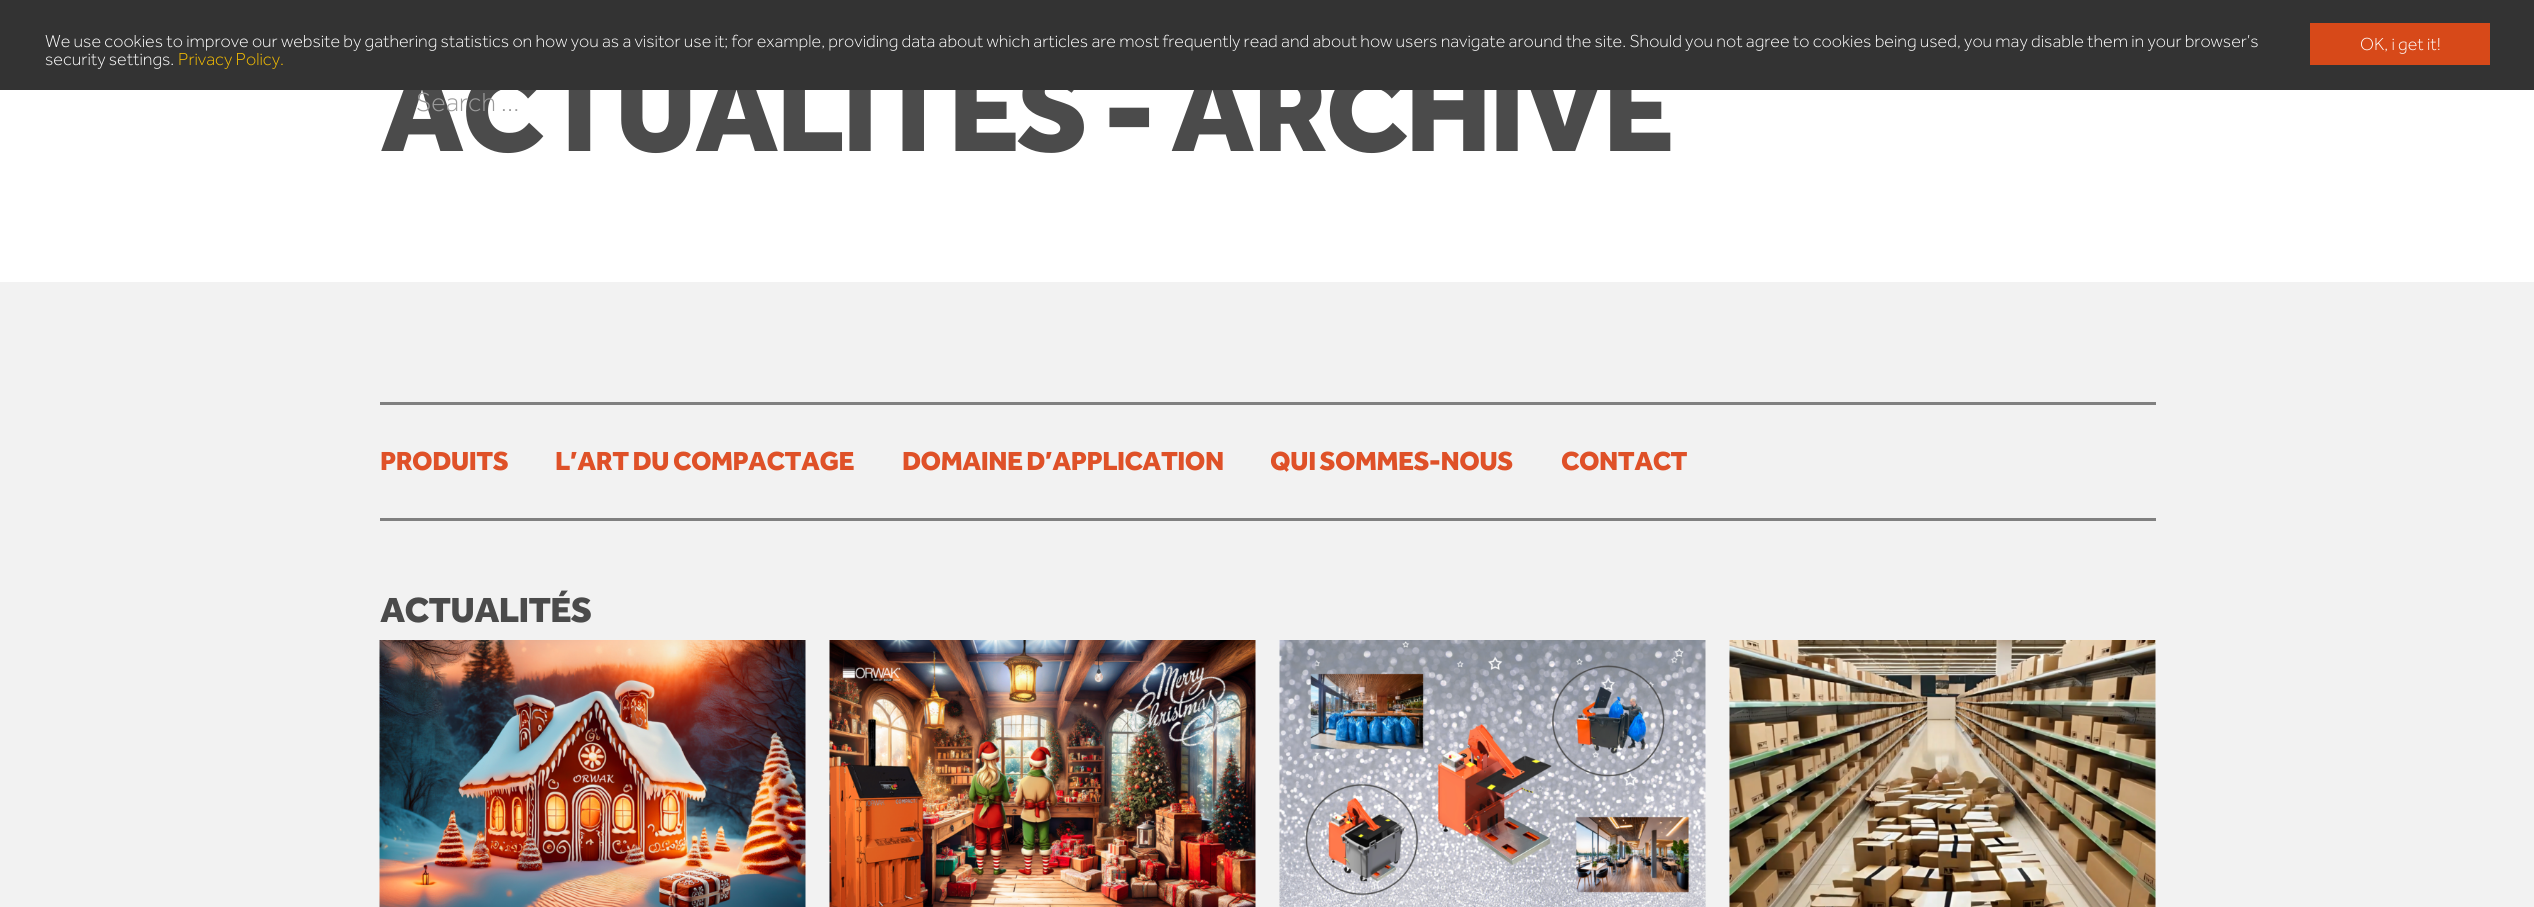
#include <cairo/cairo.h>
#include <math.h>
#include <stddef.h>

static cairo_t *cr;

static void use_color(int r, int g, int b) {
  cairo_set_source_rgb(cr, r / 255.0, g / 255.0, b / 255.0);
}

static void text(double x, double y, const char *s, const char *family, double size, int italic, int bold, int r, int g, int b) {
  cairo_select_font_face(cr, family, italic ? CAIRO_FONT_SLANT_ITALIC : CAIRO_FONT_SLANT_NORMAL,
    bold ? CAIRO_FONT_WEIGHT_BOLD : CAIRO_FONT_WEIGHT_NORMAL);
  cairo_set_font_size(cr, size);
  use_color(r, g, b);
  cairo_move_to(cr, x, y);
  cairo_show_text(cr, s);
}

static void spaced_text(double x, double y, const char *s, double letter, double word) {
  cairo_move_to(cr, x, y);
  while (*s) {
    char ch[5] = {0};
    int n = 0;
    do ch[n++] = *s++; while ((*s & 0xC0) == 0x80);
    cairo_show_text(cr, ch);
    cairo_rel_move_to(cr, letter + word * (*ch == ' '), 0);
  }
}

static void box(double x, double y, double w, double h, int r, int g, int b) {
  use_color(r, g, b);
  cairo_rectangle(cr, x, y, w, h);
  cairo_fill(cr);
}

static void picture(const char *path, double x, double y, double w, double h) {
  cairo_surface_t *image = cairo_image_surface_create_from_png(path);
  cairo_save(cr);
  cairo_set_source_surface(cr, image, x, y);
  cairo_rectangle(cr, x, y, w, h);
  cairo_fill(cr);
  cairo_restore(cr);
  cairo_surface_destroy(image);
}

static void draw(void) {
  use_color(255, 255, 255);
  cairo_paint(cr);
  box(0, 282, 2534, 625, 242, 242, 242);
  box(380, 402, 1776, 3, 128, 128, 128);
  box(380, 518, 1776, 3, 128, 128, 128);
  picture("img_01.png", 379, 640, 427, 267);
  picture("img_02.png", 829, 640, 427, 267);
  picture("img_03.png", 1279, 640, 427, 267);
  picture("img_04.png", 1729, 640, 427, 267);
  cairo_select_font_face(cr, "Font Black", CAIRO_FONT_SLANT_NORMAL, CAIRO_FONT_WEIGHT_NORMAL);
  cairo_set_font_size(cr, 120);
  use_color(75, 75, 75);
  spaced_text(380, 151, "ACTUALITÉS - ARCHIVE", -2.4, 0);
  box(0, 0, 2534, 90, 51, 51, 51);
  text(178, 65, "Privacy Policy.", "Font Light", 18, 0, 0, 249, 192, 0);
  text(45, 65, "security settings.", "Font Light", 18, 0, 0, 255, 255, 255);
  text(45, 47, "We use cookies to improve our website by gathering statistics on how you as a visitor use it; for example, providing data about which articles are most frequently read and about how users navigate around the site. Should you not agree to cookies being used, you may disable them in your browser’s", "Font Light", 18, 0, 0, 255, 255, 255);
  box(2310, 23, 180, 42, 215, 73, 25);
  text(2360, 50, "OK, i get it!", "Font Light", 18, 0, 0, 255, 255, 255);
  text(416, 111, "Search …", "Font Light", 27, 0, 0, 155, 155, 155);
  cairo_select_font_face(cr, "Font Black", CAIRO_FONT_SLANT_NORMAL, CAIRO_FONT_WEIGHT_NORMAL);
  use_color(223, 81, 40);
  spaced_text(380, 470, "PRODUITS", -0.5, 0);
  spaced_text(555, 470, "L’ART DU COMPACTAGE", -0.5, 0);
  spaced_text(902, 470, "DOMAINE D’APPLICATION", -0.5, 0);
  spaced_text(1270, 470, "QUI SOMMES-NOUS", -0.5, 0);
  spaced_text(1561, 470, "CONTACT", -0.5, 0);
  cairo_set_font_size(cr, 36);
  use_color(75, 75, 75);
  spaced_text(380, 622, "ACTUALITÉS", -0.75, 0);
}

int main(void) {
  cairo_surface_t *surface = cairo_image_surface_create(CAIRO_FORMAT_RGB24, 2534, 907);
  cr = cairo_create(surface);
  cairo_font_options_t *options = cairo_font_options_create();
  cairo_font_options_set_hint_metrics(options, CAIRO_HINT_METRICS_OFF);
  cairo_font_options_set_hint_style(options, CAIRO_HINT_STYLE_NONE);
  cairo_set_font_options(cr, options);
  cairo_set_miter_limit(cr, 4);
  draw();
  cairo_surface_write_to_png(surface, "out.png");
  cairo_font_options_destroy(options);
  cairo_destroy(cr);
  cairo_surface_destroy(surface);
  return 0;
}
